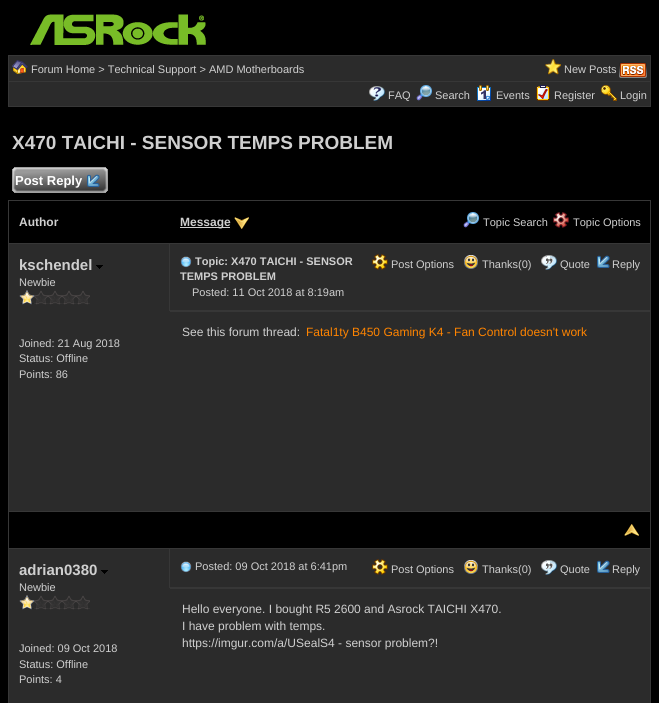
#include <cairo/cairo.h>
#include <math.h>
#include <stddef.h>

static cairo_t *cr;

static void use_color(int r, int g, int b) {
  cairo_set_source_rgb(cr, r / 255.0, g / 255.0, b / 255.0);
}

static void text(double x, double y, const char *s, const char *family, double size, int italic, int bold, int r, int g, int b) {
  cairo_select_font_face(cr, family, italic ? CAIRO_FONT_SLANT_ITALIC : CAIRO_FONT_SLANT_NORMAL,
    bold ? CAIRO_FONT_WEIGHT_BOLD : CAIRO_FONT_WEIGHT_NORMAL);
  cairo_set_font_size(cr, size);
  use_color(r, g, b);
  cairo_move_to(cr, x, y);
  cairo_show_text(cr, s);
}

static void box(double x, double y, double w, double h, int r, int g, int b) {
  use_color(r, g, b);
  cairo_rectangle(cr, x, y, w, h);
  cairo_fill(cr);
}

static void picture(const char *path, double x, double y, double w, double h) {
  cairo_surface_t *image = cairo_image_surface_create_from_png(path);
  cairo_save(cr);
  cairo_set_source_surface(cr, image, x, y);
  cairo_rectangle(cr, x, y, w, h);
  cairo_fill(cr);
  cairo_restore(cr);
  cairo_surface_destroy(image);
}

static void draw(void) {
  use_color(0, 0, 0);
  cairo_paint(cr);
  picture("img_01.png", 30, 14, 176, 31);
  box(8, 55, 643, 52, 55, 55, 55);
  box(9, 56, 641, 25, 43, 43, 43);
  picture("img_02.png", 12, 60, 16, 14);
  picture("img_03.png", 545, 59, 16, 16);
  picture("img_04.png", 619, 62, 28, 16);
  box(9, 82, 641, 24, 43, 43, 43);
  picture("img_05.png", 369, 86, 16, 15);
  picture("img_06.png", 416, 85, 16, 16);
  picture("img_07.png", 477, 85, 14, 16);
  picture("img_08.png", 536, 85, 14, 16);
  picture("img_09.png", 601, 85, 16, 16);
  picture("img_10.png", 12, 167, 96, 26);
  picture("img_11.png", 87, 174, 13, 13);
  box(8, 200, 643, 503, 55, 55, 55);
  box(9, 201, 641, 42, 0, 0, 0);
  box(180, 227, 50, 1, 207, 207, 207);
  picture("img_12.png", 234, 217, 15, 12);
  picture("img_13.png", 463, 212, 16, 16);
  picture("img_14.png", 553, 212, 16, 16);
  box(9, 244, 160, 67, 43, 43, 43);
  picture("img_15.png", 96, 265, 7, 4);
  picture("img_16.png", 19, 290, 71, 15);
  box(170, 244, 480, 66, 43, 43, 43);
  picture("img_17.png", 180, 256, 12, 12);
  picture("img_18.png", 372, 254, 16, 16);
  picture("img_19.png", 464, 255, 14, 14);
  picture("img_20.png", 541, 255, 16, 15);
  picture("img_21.png", 597, 255, 13, 13);
  box(9, 311, 641, 200, 43, 43, 43);
  box(170, 311, 480, 1, 55, 55, 55);
  box(9, 512, 641, 36, 0, 0, 0);
  picture("img_22.png", 624, 524, 15, 12);
  box(9, 549, 160, 39, 43, 43, 43);
  picture("img_15.png", 101, 570, 7, 4);
  box(9, 588, 641, 115, 43, 43, 43);
  picture("img_16.png", 19, 595, 71, 15);
  box(170, 549, 480, 38, 43, 43, 43);
  picture("img_17.png", 180, 561, 12, 12);
  picture("img_18.png", 372, 559, 16, 16);
  picture("img_19.png", 464, 560, 14, 14);
  picture("img_20.png", 541, 560, 16, 15);
  picture("img_21.png", 597, 560, 13, 13);
  box(170, 588, 480, 1, 55, 55, 55);
  text(31, 73, "Forum Home > Technical Support > AMD Motherboards", "Liberation Sans", 11, 0, 0, 207, 207, 207);
  text(564, 73, "New Posts", "Liberation Sans", 11, 0, 0, 207, 207, 207);
  text(388, 99, "FAQ", "Liberation Sans", 11, 0, 0, 207, 207, 207);
  text(435, 99, "Search", "Liberation Sans", 11, 0, 0, 207, 207, 207);
  text(496, 99, "Events", "Liberation Sans", 11, 0, 0, 207, 207, 207);
  text(554, 99, "Register", "Liberation Sans", 11, 0, 0, 207, 207, 207);
  text(620, 99, "Login", "Liberation Sans", 11, 0, 0, 207, 207, 207);
  text(12, 149, "X470 TAICHI - SENSOR TEMPS PROBLEM", "Liberation Sans", 19, 0, 1, 207, 207, 207);
  text(15, 185, "Post Reply", "Liberation Sans", 13, 0, 1, 255, 255, 255);
  text(19, 226, "Author", "Liberation Sans", 12, 0, 1, 207, 207, 207);
  text(180, 226, "Message", "Liberation Sans", 12, 0, 1, 207, 207, 207);
  text(483, 226, "Topic Search", "Liberation Sans", 11, 0, 0, 207, 207, 207);
  text(573, 226, "Topic Options", "Liberation Sans", 11, 0, 0, 207, 207, 207);
  text(19, 270, "kschendel", "Liberation Sans", 15, 0, 1, 207, 207, 207);
  text(19, 286, "Newbie", "Liberation Sans", 11, 0, 0, 207, 207, 207);
  text(19, 347, "Joined: 21 Aug 2018", "Liberation Sans", 11, 0, 0, 207, 207, 207);
  text(19, 362, "Status: Offline", "Liberation Sans", 11, 0, 0, 207, 207, 207);
  text(19, 378, "Points: 86", "Liberation Sans", 11, 0, 0, 207, 207, 207);
  text(195, 265, "Topic: X470 TAICHI - SENSOR", "Liberation Sans", 11, 0, 1, 207, 207, 207);
  text(391, 268, "Post Options", "Liberation Sans", 11, 0, 0, 207, 207, 207);
  text(482, 268, "Thanks(0)", "Liberation Sans", 11, 0, 0, 207, 207, 207);
  text(560, 268, "Quote", "Liberation Sans", 11, 0, 0, 207, 207, 207);
  text(612, 268, "Reply", "Liberation Sans", 11, 0, 0, 207, 207, 207);
  text(180, 280, "TEMPS PROBLEM", "Liberation Sans", 11, 0, 1, 207, 207, 207);
  text(192, 296, "Posted: 11 Oct 2018 at 8:19am", "Liberation Sans", 11, 0, 0, 207, 207, 207);
  text(182, 336, "See this forum thread:", "Liberation Sans", 12, 0, 0, 207, 207, 207);
  text(306, 336, "Fatal1ty B450 Gaming K4 - Fan Control doesn't work", "Liberation Sans", 12, 0, 0, 255, 132, 0);
  text(19, 575, "adrian0380", "Liberation Sans", 15, 0, 1, 207, 207, 207);
  text(19, 591, "Newbie", "Liberation Sans", 11, 0, 0, 207, 207, 207);
  text(19, 652, "Joined: 09 Oct 2018", "Liberation Sans", 11, 0, 0, 207, 207, 207);
  text(19, 668, "Status: Offline", "Liberation Sans", 11, 0, 0, 207, 207, 207);
  text(19, 683, "Points: 4", "Liberation Sans", 11, 0, 0, 207, 207, 207);
  text(195, 570, "Posted: 09 Oct 2018 at 6:41pm", "Liberation Sans", 11, 0, 0, 207, 207, 207);
  text(391, 573, "Post Options", "Liberation Sans", 11, 0, 0, 207, 207, 207);
  text(482, 573, "Thanks(0)", "Liberation Sans", 11, 0, 0, 207, 207, 207);
  text(560, 573, "Quote", "Liberation Sans", 11, 0, 0, 207, 207, 207);
  text(612, 573, "Reply", "Liberation Sans", 11, 0, 0, 207, 207, 207);
  text(182, 613, "Hello everyone. I bought R5 2600 and Asrock TAICHI X470.", "Liberation Sans", 12, 0, 0, 207, 207, 207);
  text(182, 630, "I have problem with temps.", "Liberation Sans", 12, 0, 0, 207, 207, 207);
  text(182, 647, "https://imgur.com/a/USealS4 - sensor problem?!", "Liberation Sans", 12, 0, 0, 207, 207, 207);
}

int main(void) {
  cairo_surface_t *surface = cairo_image_surface_create(CAIRO_FORMAT_RGB24, 659, 703);
  cr = cairo_create(surface);
  cairo_font_options_t *options = cairo_font_options_create();
  cairo_font_options_set_hint_metrics(options, CAIRO_HINT_METRICS_OFF);
  cairo_font_options_set_hint_style(options, CAIRO_HINT_STYLE_NONE);
  cairo_set_font_options(cr, options);
  cairo_set_miter_limit(cr, 4);
  draw();
  cairo_surface_write_to_png(surface, "out.png");
  cairo_font_options_destroy(options);
  cairo_destroy(cr);
  cairo_surface_destroy(surface);
  return 0;
}
